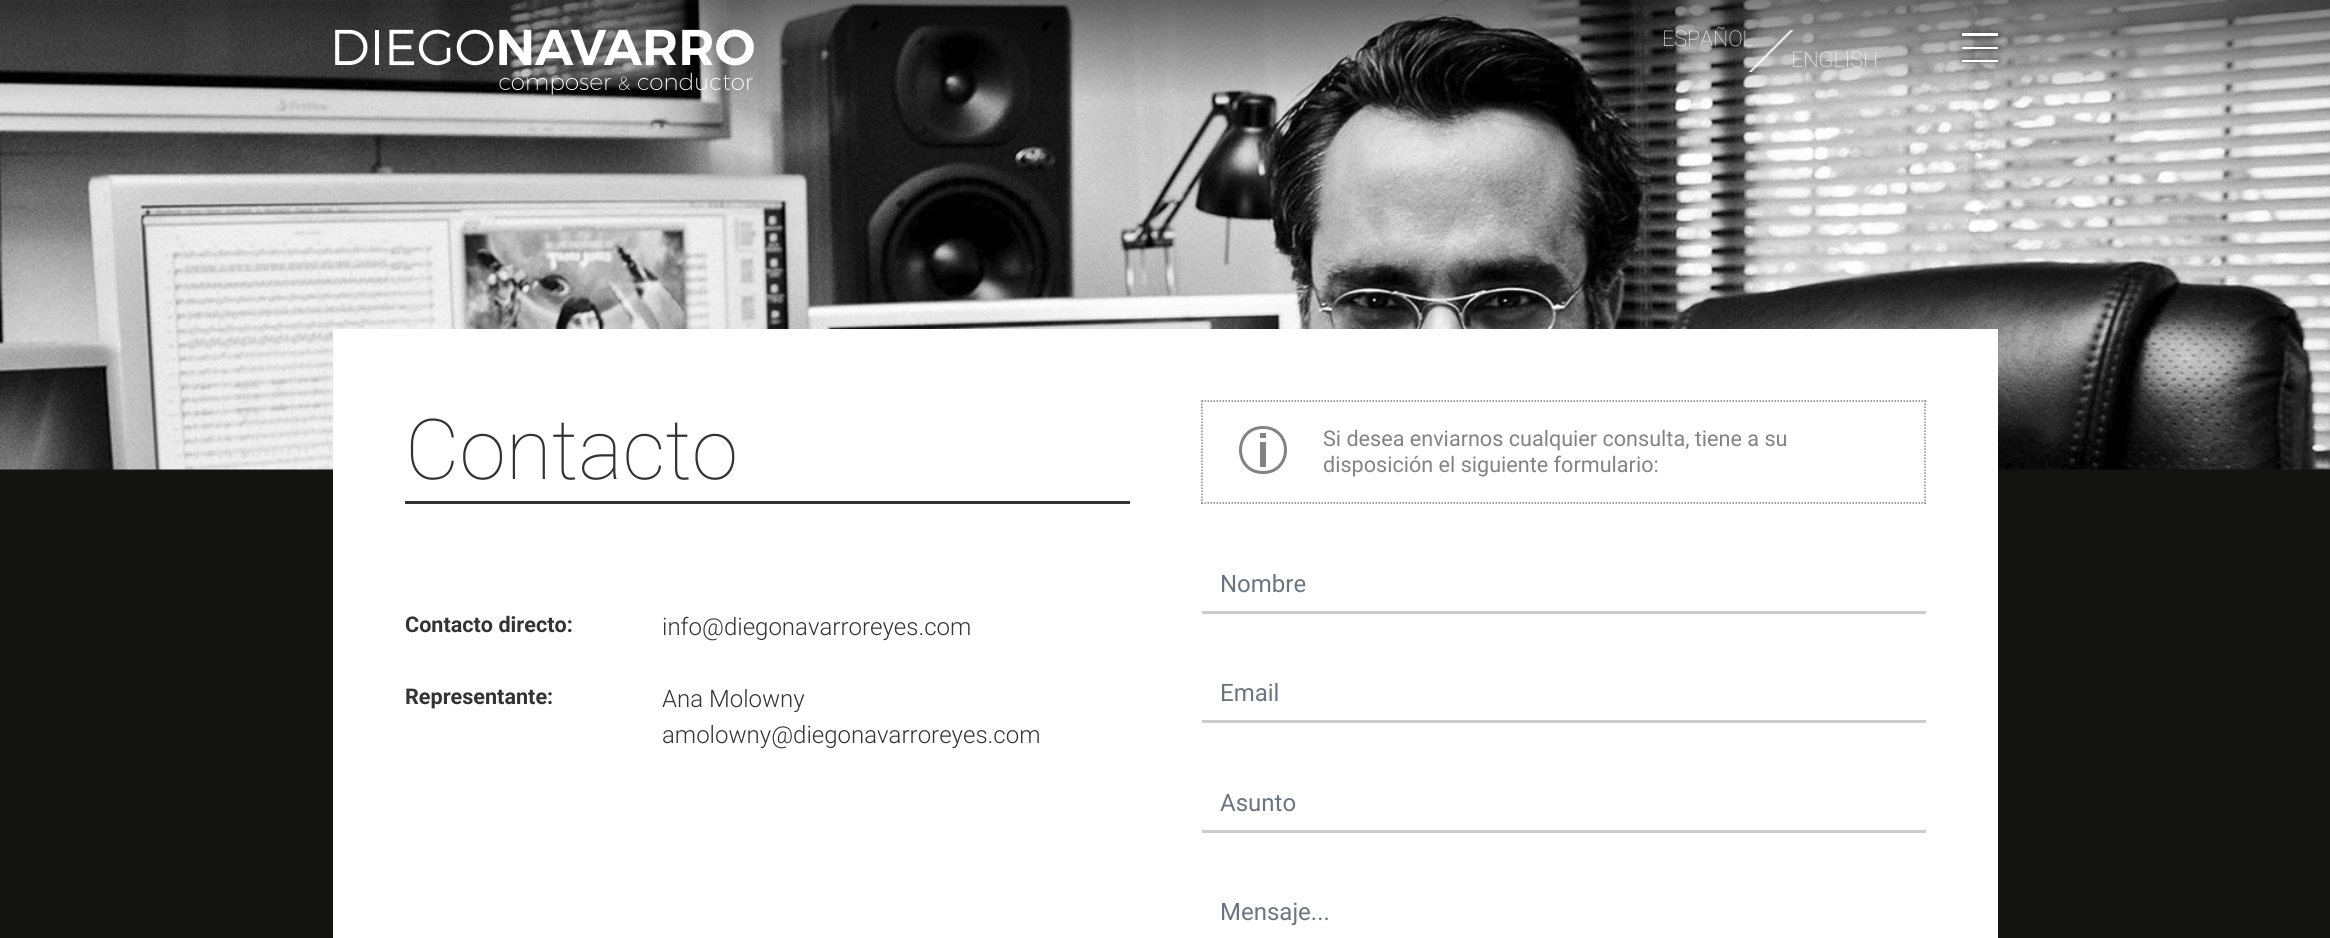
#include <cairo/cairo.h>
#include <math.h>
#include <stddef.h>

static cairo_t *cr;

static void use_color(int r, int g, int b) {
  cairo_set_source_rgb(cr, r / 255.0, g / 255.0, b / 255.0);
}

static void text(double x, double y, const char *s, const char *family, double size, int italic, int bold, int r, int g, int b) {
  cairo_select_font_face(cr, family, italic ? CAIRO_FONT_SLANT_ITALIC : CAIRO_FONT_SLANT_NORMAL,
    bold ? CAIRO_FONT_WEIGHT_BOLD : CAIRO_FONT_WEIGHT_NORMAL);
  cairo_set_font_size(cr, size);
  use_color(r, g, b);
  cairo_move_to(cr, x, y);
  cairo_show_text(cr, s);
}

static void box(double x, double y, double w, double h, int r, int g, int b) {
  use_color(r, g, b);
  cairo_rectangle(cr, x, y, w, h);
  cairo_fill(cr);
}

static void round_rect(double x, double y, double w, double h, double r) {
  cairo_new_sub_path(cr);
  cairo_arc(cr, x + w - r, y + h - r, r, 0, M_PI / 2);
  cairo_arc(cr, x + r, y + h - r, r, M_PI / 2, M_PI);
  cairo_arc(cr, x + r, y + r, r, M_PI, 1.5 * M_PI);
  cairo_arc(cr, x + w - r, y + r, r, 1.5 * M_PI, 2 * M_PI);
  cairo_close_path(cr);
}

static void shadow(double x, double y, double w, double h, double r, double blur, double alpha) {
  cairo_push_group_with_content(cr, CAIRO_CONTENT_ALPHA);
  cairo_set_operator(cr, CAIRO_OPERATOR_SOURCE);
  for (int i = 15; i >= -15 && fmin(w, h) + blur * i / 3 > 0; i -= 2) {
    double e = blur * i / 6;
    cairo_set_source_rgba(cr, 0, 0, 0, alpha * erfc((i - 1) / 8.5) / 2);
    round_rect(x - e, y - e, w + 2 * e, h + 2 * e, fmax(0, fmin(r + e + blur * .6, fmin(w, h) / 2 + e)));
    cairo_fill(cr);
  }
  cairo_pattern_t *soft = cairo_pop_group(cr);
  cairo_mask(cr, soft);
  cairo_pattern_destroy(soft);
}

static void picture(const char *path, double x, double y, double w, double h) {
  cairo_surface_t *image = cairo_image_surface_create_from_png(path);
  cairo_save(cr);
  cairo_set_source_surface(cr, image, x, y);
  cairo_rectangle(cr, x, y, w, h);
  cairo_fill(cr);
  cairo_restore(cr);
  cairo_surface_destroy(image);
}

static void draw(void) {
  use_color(19, 19, 17);
  cairo_paint(cr);
  picture("img_02.png", 0, 0, 2330, 470);
  picture("img_01.png", 335, 29, 419, 66);
  use_color(0, 0, 0);
  shadow(1962, 33, 36, 3, 0, 4, 0.5);
  box(1962, 33, 36, 3, 255, 255, 255);
  use_color(0, 0, 0);
  shadow(1962, 47, 36, 2, 0, 4, 0.5);
  box(1962, 47, 36, 2, 255, 255, 255);
  use_color(0, 0, 0);
  shadow(1962, 60, 36, 2, 0, 4, 0.5);
  box(1962, 60, 36, 2, 255, 255, 255);
  box(333, 329, 1665, 609, 255, 255, 255);
  box(405, 501, 725, 3, 51, 51, 51);
  cairo_new_path(cr);
  cairo_move_to(cr, 1201.5, 401);
  cairo_line_to(cr, 1926, 401);
  use_color(131, 131, 131);
  cairo_set_line_width(cr, 1.5);
  cairo_set_dash(cr, (double[]){1.5, 1.5}, 2, 0);
  cairo_stroke(cr);
  cairo_new_path(cr);
  cairo_move_to(cr, 1925, 400.5);
  cairo_line_to(cr, 1925, 504);
  cairo_stroke(cr);
  cairo_new_path(cr);
  cairo_move_to(cr, 1201.5, 503);
  cairo_line_to(cr, 1926, 503);
  cairo_stroke(cr);
  cairo_new_path(cr);
  cairo_move_to(cr, 1202, 400.5);
  cairo_line_to(cr, 1202, 504);
  cairo_stroke(cr);
  cairo_new_path(cr);
  cairo_move_to(cr, 1263, 426);
  cairo_curve_to(cr, 1231, 426, 1231, 474, 1263, 474);
  cairo_curve_to(cr, 1295, 474, 1295, 426, 1263, 426);
  cairo_close_path(cr);
  cairo_move_to(cr, 1263, 471);
  cairo_curve_to(cr, 1235, 471, 1235, 429, 1263, 429);
  cairo_curve_to(cr, 1291, 429, 1291, 471, 1263, 471);
  cairo_close_path(cr);
  cairo_move_to(cr, 1266, 438);
  cairo_line_to(cr, 1260, 438);
  cairo_line_to(cr, 1260, 433);
  cairo_line_to(cr, 1266, 433);
  cairo_close_path(cr);
  cairo_move_to(cr, 1266, 467);
  cairo_line_to(cr, 1260, 467);
  cairo_line_to(cr, 1260, 442);
  cairo_line_to(cr, 1266, 442);
  cairo_close_path(cr);
  cairo_fill(cr);
  box(1202, 611, 724, 3, 204, 204, 204);
  box(1202, 720, 724, 3, 204, 204, 204);
  box(1202, 830, 724, 3, 204, 204, 204);
  text(1662, 46, "ESPAÑOL", "Roboto Thin", 21.6, 0, 0, 255, 255, 255);
  text(1791, 67, "ENGLISH", "Roboto Thin", 21.6, 0, 0, 255, 255, 255);
  text(405, 479, "Contacto", "Roboto Thin", 84, 0, 0, 51, 51, 51);
  text(405, 632, "Contacto directo:", "Roboto", 21.6, 0, 1, 51, 51, 51);
  text(662, 635, "info@diegonavarroreyes.com", "Roboto Light", 24, 0, 0, 51, 51, 51);
  text(405, 704, "Representante:", "Roboto", 21.6, 0, 1, 51, 51, 51);
  text(662, 707, "Ana Molowny", "Roboto Light", 24, 0, 0, 51, 51, 51);
  text(662, 743, "amolowny@diegonavarroreyes.com", "Roboto Light", 24, 0, 0, 51, 51, 51);
  text(1323, 446, "Si desea enviarnos cualquier consulta, tiene a su", "Roboto", 21.6, 0, 0, 131, 131, 131);
  text(1323, 472, "disposición el siguiente formulario:", "Roboto", 21.6, 0, 0, 131, 131, 131);
  text(1220, 592, "Nombre", "Roboto", 24, 0, 0, 108, 117, 125);
  text(1220, 701, "Email", "Roboto", 24, 0, 0, 108, 117, 125);
  text(1220, 811, "Asunto", "Roboto", 24, 0, 0, 108, 117, 125);
  text(1220, 920, "Mensaje...", "Roboto", 24, 0, 0, 108, 117, 125);
}

int main(void) {
  cairo_surface_t *surface = cairo_image_surface_create(CAIRO_FORMAT_RGB24, 2330, 938);
  cr = cairo_create(surface);
  cairo_font_options_t *options = cairo_font_options_create();
  cairo_font_options_set_hint_metrics(options, CAIRO_HINT_METRICS_OFF);
  cairo_font_options_set_hint_style(options, CAIRO_HINT_STYLE_NONE);
  cairo_set_font_options(cr, options);
  cairo_set_miter_limit(cr, 4);
  draw();
  cairo_surface_write_to_png(surface, "out.png");
  cairo_font_options_destroy(options);
  cairo_destroy(cr);
  cairo_surface_destroy(surface);
  return 0;
}
